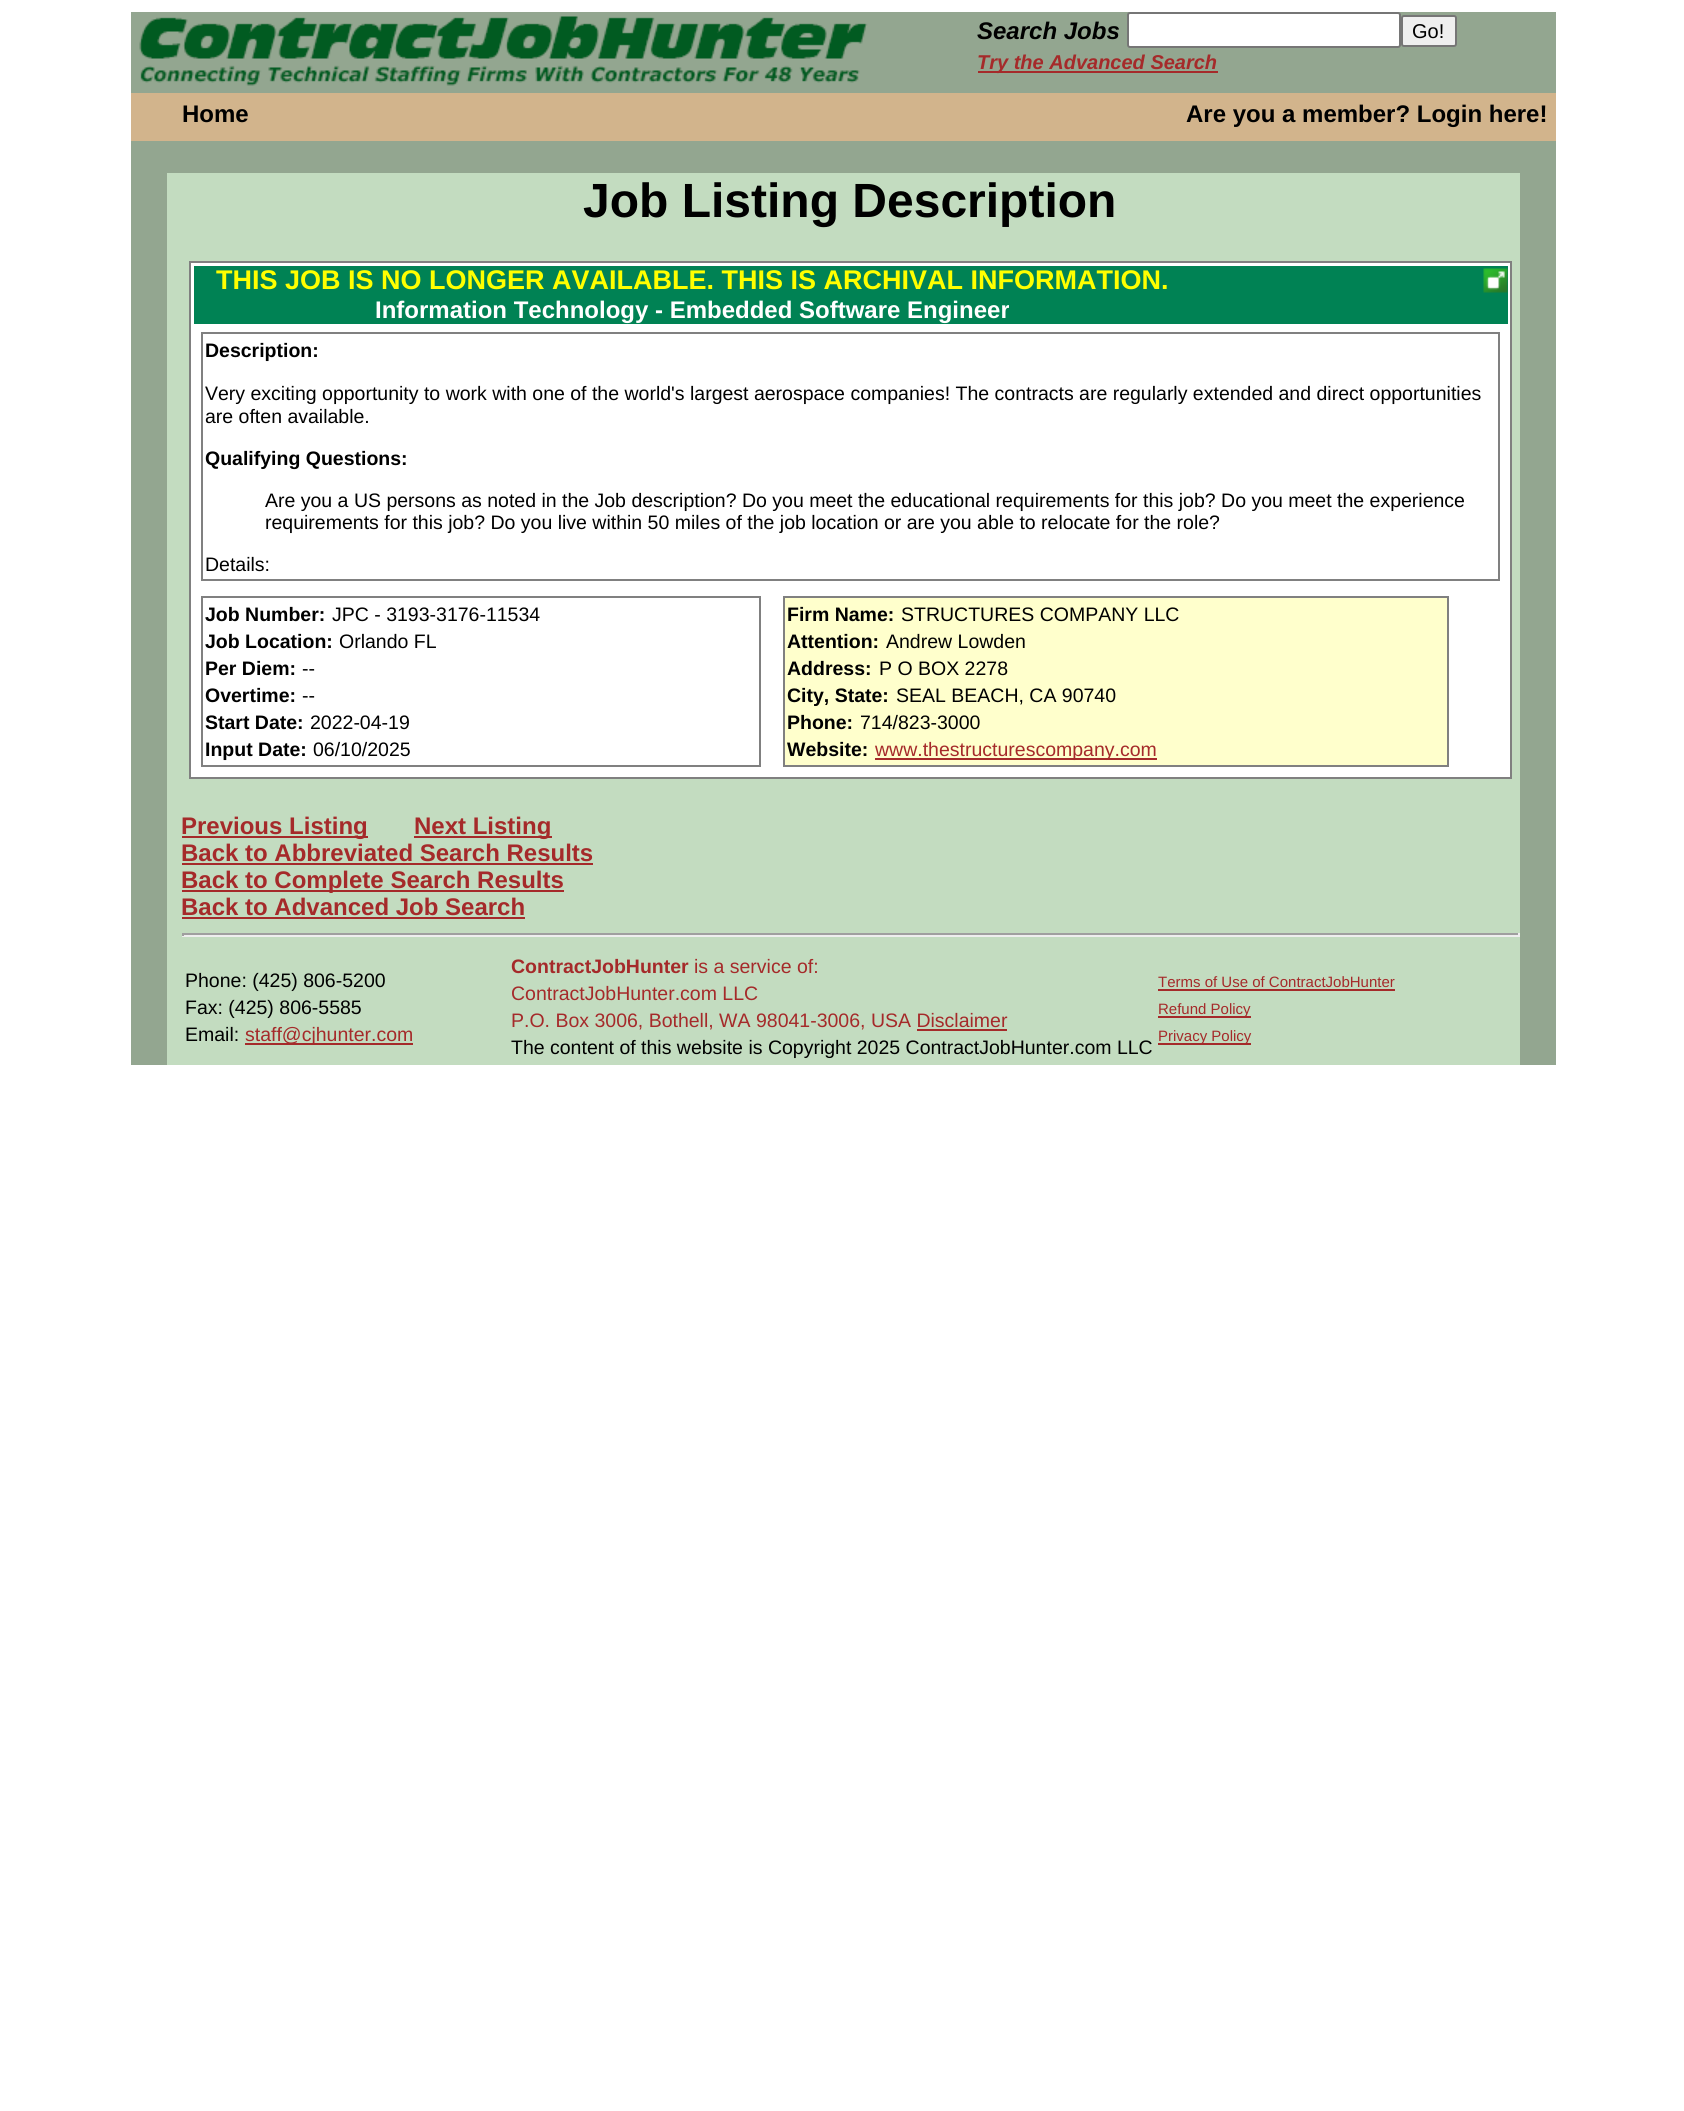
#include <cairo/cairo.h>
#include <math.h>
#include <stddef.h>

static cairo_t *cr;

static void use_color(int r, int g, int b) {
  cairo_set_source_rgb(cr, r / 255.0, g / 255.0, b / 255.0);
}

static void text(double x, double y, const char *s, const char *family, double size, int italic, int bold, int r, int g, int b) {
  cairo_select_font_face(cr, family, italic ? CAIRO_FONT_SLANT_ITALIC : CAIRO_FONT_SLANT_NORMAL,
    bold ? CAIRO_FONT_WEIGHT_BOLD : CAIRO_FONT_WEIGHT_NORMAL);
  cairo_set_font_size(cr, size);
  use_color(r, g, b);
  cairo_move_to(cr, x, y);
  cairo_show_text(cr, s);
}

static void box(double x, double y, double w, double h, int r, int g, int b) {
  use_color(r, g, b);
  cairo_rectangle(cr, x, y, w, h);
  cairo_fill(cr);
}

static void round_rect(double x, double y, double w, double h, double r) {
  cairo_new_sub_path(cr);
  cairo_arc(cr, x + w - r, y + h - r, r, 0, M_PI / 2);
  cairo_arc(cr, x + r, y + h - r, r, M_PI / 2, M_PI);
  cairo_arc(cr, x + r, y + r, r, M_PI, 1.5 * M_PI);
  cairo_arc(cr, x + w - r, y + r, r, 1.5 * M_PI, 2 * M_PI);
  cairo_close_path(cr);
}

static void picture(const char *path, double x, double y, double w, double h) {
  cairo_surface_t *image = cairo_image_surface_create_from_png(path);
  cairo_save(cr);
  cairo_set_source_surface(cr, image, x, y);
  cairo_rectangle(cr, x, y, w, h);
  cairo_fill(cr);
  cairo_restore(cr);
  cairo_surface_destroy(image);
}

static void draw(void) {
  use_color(255, 255, 255);
  cairo_paint(cr);
  box(131, 12, 1425, 81, 147, 166, 144);
  picture("img_01.png", 139, 16, 729, 70);
  use_color(255, 255, 255);
  round_rect(1128, 13, 272, 34, 2);
  cairo_fill_preserve(cr);
  use_color(118, 118, 118);
  cairo_stroke(cr);
  use_color(239, 239, 239);
  round_rect(1402, 16, 54, 30, 2);
  cairo_fill_preserve(cr);
  use_color(118, 118, 118);
  cairo_stroke(cr);
  box(978, 71, 240, 2, 165, 42, 42);
  box(131, 141, 1425, 924, 147, 166, 144);
  box(131, 93, 1425, 48, 210, 180, 140);
  box(167, 173, 1353, 892, 195, 220, 192);
  use_color(255, 255, 255);
  cairo_rectangle(cr, 190, 262, 1321, 516);
  cairo_fill_preserve(cr);
  use_color(128, 128, 128);
  cairo_stroke(cr);
  box(194, 266, 1314, 58, 0, 130, 84);
  picture("img_02.png", 1483, 268, 25, 25);
  cairo_rectangle(cr, 202, 333, 1297, 247);
  use_color(128, 128, 128);
  cairo_stroke(cr);
  cairo_rectangle(cr, 202, 597, 558, 169);
  cairo_stroke(cr);
  use_color(255, 255, 204);
  cairo_rectangle(cr, 784, 597, 664, 169);
  cairo_fill_preserve(cr);
  use_color(128, 128, 128);
  cairo_stroke(cr);
  box(875, 758, 282, 2, 165, 42, 42);
  box(182, 836, 186, 2, 165, 42, 42);
  box(414, 836, 138, 2, 165, 42, 42);
  box(182, 863, 411, 2, 165, 42, 42);
  box(182, 890, 382, 2, 165, 42, 42);
  box(182, 917, 343, 2, 165, 42, 42);
  box(182, 933, 1338, 2, 159, 159, 159);
  box(1518, 933, 2, 3, 238, 238, 238);
  box(182, 935, 1338, 2, 238, 238, 238);
  box(182, 933, 2, 3, 159, 159, 159);
  box(245, 1043, 168, 2, 165, 42, 42);
  box(917, 1029, 90, 2, 165, 42, 42);
  box(1158, 989, 237, 2, 165, 42, 42);
  box(1158, 1016, 93, 2, 165, 42, 42);
  box(1158, 1043, 93, 2, 165, 42, 42);
  text(977, 39, "Search Jobs", "Liberation Sans", 24, 1, 1, 0, 0, 0);
  text(1412, 38, "Go!", "Liberation Sans", 20, 0, 0, 0, 0, 0);
  text(977, 69, "Try the Advanced Search", "Liberation Sans", 20, 1, 1, 165, 42, 42);
  text(182, 122, "Home", "Liberation Sans", 24, 0, 1, 0, 0, 0);
  text(1186, 122, "Are you a member? Login here!", "Liberation Sans", 24, 0, 1, 0, 0, 0);
  text(583, 217, "Job Listing Description", "Liberation Sans", 48, 0, 1, 0, 0, 0);
  text(216, 289, "THIS JOB IS NO LONGER AVAILABLE. THIS IS ARCHIVAL INFORMATION.", "Liberation Sans", 27, 0, 1, 255, 255, 0);
  text(375, 318, "Information Technology - Embedded Software Engineer", "Liberation Sans", 24, 0, 1, 255, 255, 255);
  text(205, 357, "Description:", "Liberation Sans", 19.5, 0, 1, 0, 0, 0);
  text(205, 400, "Very exciting opportunity to work with one of the world's largest aerospace companies! The contracts are regularly extended and direct opportunities", "Liberation Sans", 19.5, 0, 0, 0, 0, 0);
  text(205, 423, "are often available.", "Liberation Sans", 19.5, 0, 0, 0, 0, 0);
  text(205, 465, "Qualifying Questions:", "Liberation Sans", 19.5, 0, 1, 0, 0, 0);
  text(265, 507, "Are you a US persons as noted in the Job description? Do you meet the educational requirements for this job? Do you meet the experience", "Liberation Sans", 19.5, 0, 0, 0, 0, 0);
  text(265, 529, "requirements for this job? Do you live within 50 miles of the job location or are you able to relocate for the role?", "Liberation Sans", 19.5, 0, 0, 0, 0, 0);
  text(205, 571, "Details:", "Liberation Sans", 19.5, 0, 0, 0, 0, 0);
  text(205, 621, "Job Number:", "Liberation Sans", 19.5, 0, 1, 0, 0, 0);
  text(332, 621, "JPC - 3193-3176-11534", "Liberation Sans", 19.5, 0, 0, 0, 0, 0);
  text(205, 648, "Job Location:", "Liberation Sans", 19.5, 0, 1, 0, 0, 0);
  text(339, 648, "Orlando FL", "Liberation Sans", 19.5, 0, 0, 0, 0, 0);
  text(205, 675, "Per Diem:", "Liberation Sans", 19.5, 0, 1, 0, 0, 0);
  text(302, 675, "--", "Liberation Sans", 19.5, 0, 0, 0, 0, 0);
  text(205, 702, "Overtime:", "Liberation Sans", 19.5, 0, 1, 0, 0, 0);
  text(302, 702, "--", "Liberation Sans", 19.5, 0, 0, 0, 0, 0);
  text(205, 729, "Start Date:", "Liberation Sans", 19.5, 0, 1, 0, 0, 0);
  text(310, 729, "2022-04-19", "Liberation Sans", 19.5, 0, 0, 0, 0, 0);
  text(205, 756, "Input Date:", "Liberation Sans", 19.5, 0, 1, 0, 0, 0);
  text(313, 756, "06/10/2025", "Liberation Sans", 19.5, 0, 0, 0, 0, 0);
  text(787, 621, "Firm Name:", "Liberation Sans", 19.5, 0, 1, 0, 0, 0);
  text(901, 621, "STRUCTURES COMPANY LLC", "Liberation Sans", 19.5, 0, 0, 0, 0, 0);
  text(787, 648, "Attention:", "Liberation Sans", 19.5, 0, 1, 0, 0, 0);
  text(886, 648, "Andrew Lowden", "Liberation Sans", 19.5, 0, 0, 0, 0, 0);
  text(787, 675, "Address:", "Liberation Sans", 19.5, 0, 1, 0, 0, 0);
  text(879, 675, "P O BOX 2278", "Liberation Sans", 19.5, 0, 0, 0, 0, 0);
  text(787, 702, "City, State:", "Liberation Sans", 19.5, 0, 1, 0, 0, 0);
  text(896, 702, "SEAL BEACH, CA 90740", "Liberation Sans", 19.5, 0, 0, 0, 0, 0);
  text(787, 729, "Phone:", "Liberation Sans", 19.5, 0, 1, 0, 0, 0);
  text(860, 729, "714/823-3000", "Liberation Sans", 19.5, 0, 0, 0, 0, 0);
  text(787, 756, "Website:", "Liberation Sans", 19.5, 0, 1, 0, 0, 0);
  text(875, 756, "www.thestructurescompany.com", "Liberation Sans", 19.5, 0, 0, 165, 42, 42);
  text(181, 834, "Previous Listing", "Liberation Sans", 24, 0, 1, 165, 42, 42);
  text(414, 834, "Next Listing", "Liberation Sans", 24, 0, 1, 165, 42, 42);
  text(181, 861, "Back to Abbreviated Search Results", "Liberation Sans", 24, 0, 1, 165, 42, 42);
  text(181, 888, "Back to Complete Search Results", "Liberation Sans", 24, 0, 1, 165, 42, 42);
  text(181, 915, "Back to Advanced Job Search", "Liberation Sans", 24, 0, 1, 165, 42, 42);
  text(185, 987, "Phone: (425) 806-5200", "Liberation Sans", 19.5, 0, 0, 0, 0, 0);
  text(185, 1014, "Fax: (425) 806-5585", "Liberation Sans", 19.5, 0, 0, 0, 0, 0);
  text(185, 1041, "Email:", "Liberation Sans", 19.5, 0, 0, 0, 0, 0);
  text(245, 1041, "staff@cjhunter.com", "Liberation Sans", 19.5, 0, 0, 165, 42, 42);
  text(511, 973, "ContractJobHunter", "Liberation Sans", 19.5, 0, 1, 165, 42, 42);
  text(694, 973, "is a service of:", "Liberation Sans", 19.5, 0, 0, 165, 42, 42);
  text(511, 1000, "ContractJobHunter.com LLC", "Liberation Sans", 19.5, 0, 0, 165, 42, 42);
  text(511, 1027, "P.O. Box 3006, Bothell, WA 98041-3006, USA Disclaimer", "Liberation Sans", 19.5, 0, 0, 165, 42, 42);
  text(511, 1054, "The content of this website is Copyright 2025 ContractJobHunter.com LLC", "Liberation Sans", 19.5, 0, 0, 0, 0, 0);
  text(1158, 987, "Terms of Use of ContractJobHunter", "Liberation Sans", 15, 0, 0, 165, 42, 42);
  text(1158, 1014, "Refund Policy", "Liberation Sans", 15, 0, 0, 165, 42, 42);
  text(1158, 1041, "Privacy Policy", "Liberation Sans", 15, 0, 0, 165, 42, 42);
}

int main(void) {
  cairo_surface_t *surface = cairo_image_surface_create(CAIRO_FORMAT_RGB24, 1684, 2111);
  cr = cairo_create(surface);
  cairo_font_options_t *options = cairo_font_options_create();
  cairo_font_options_set_hint_metrics(options, CAIRO_HINT_METRICS_OFF);
  cairo_font_options_set_hint_style(options, CAIRO_HINT_STYLE_NONE);
  cairo_set_font_options(cr, options);
  cairo_set_miter_limit(cr, 4);
  draw();
  cairo_surface_write_to_png(surface, "out.png");
  cairo_font_options_destroy(options);
  cairo_destroy(cr);
  cairo_surface_destroy(surface);
  return 0;
}
